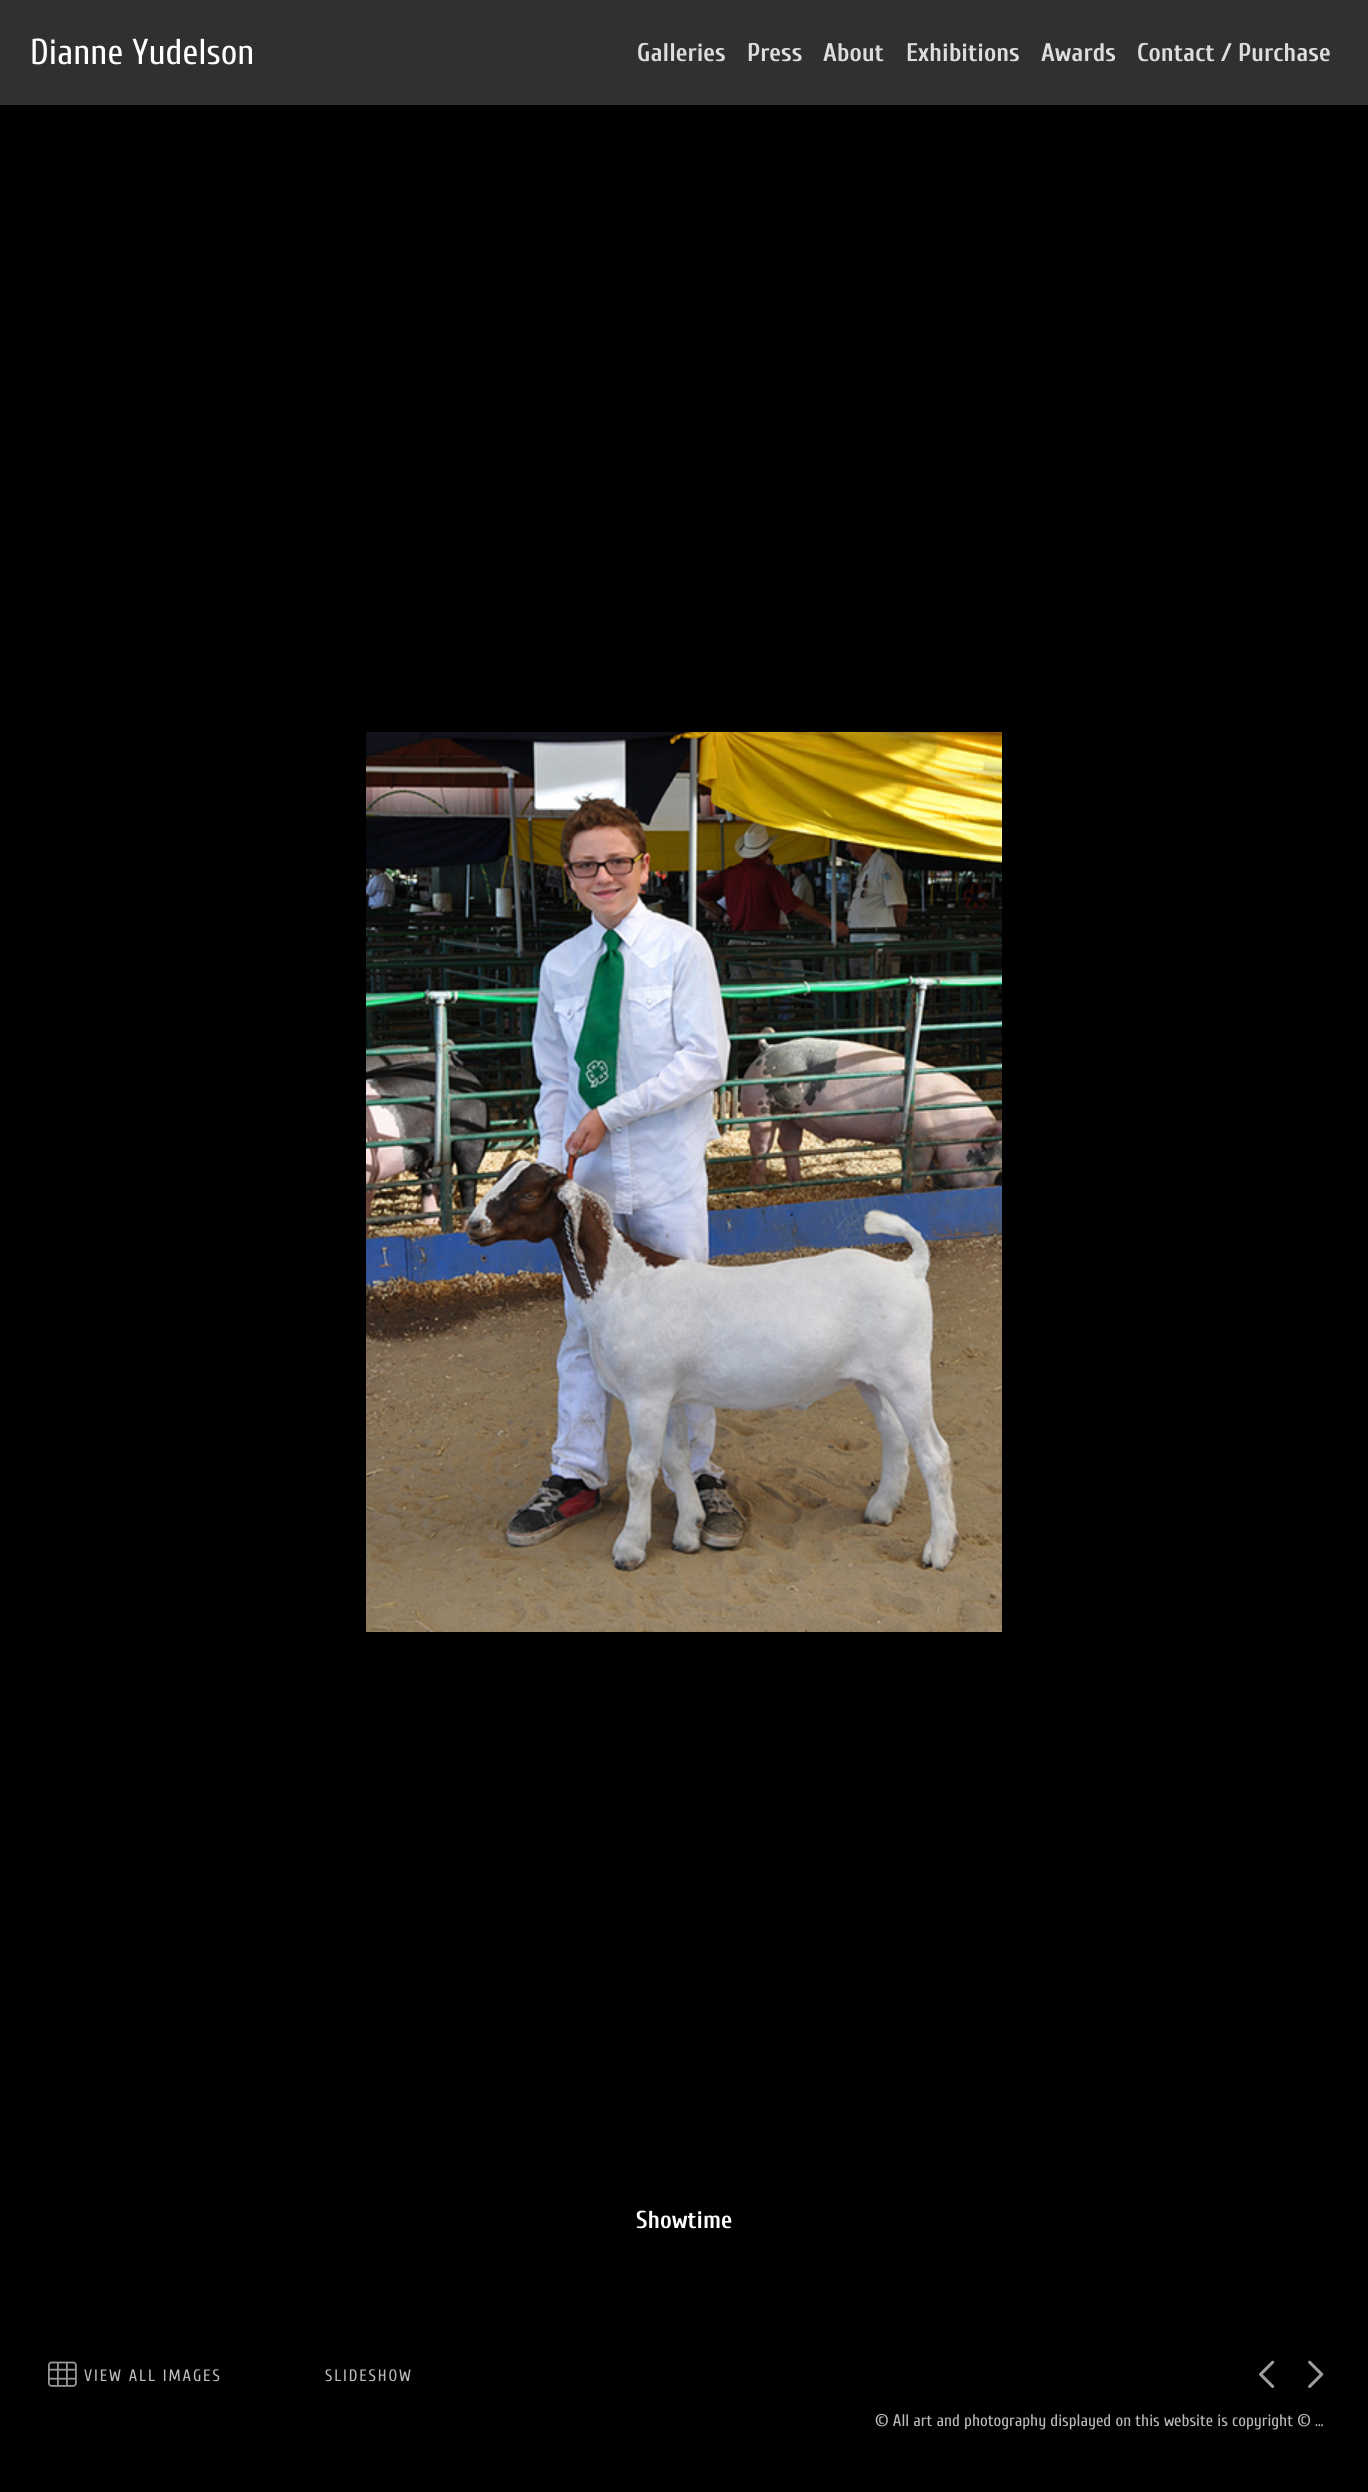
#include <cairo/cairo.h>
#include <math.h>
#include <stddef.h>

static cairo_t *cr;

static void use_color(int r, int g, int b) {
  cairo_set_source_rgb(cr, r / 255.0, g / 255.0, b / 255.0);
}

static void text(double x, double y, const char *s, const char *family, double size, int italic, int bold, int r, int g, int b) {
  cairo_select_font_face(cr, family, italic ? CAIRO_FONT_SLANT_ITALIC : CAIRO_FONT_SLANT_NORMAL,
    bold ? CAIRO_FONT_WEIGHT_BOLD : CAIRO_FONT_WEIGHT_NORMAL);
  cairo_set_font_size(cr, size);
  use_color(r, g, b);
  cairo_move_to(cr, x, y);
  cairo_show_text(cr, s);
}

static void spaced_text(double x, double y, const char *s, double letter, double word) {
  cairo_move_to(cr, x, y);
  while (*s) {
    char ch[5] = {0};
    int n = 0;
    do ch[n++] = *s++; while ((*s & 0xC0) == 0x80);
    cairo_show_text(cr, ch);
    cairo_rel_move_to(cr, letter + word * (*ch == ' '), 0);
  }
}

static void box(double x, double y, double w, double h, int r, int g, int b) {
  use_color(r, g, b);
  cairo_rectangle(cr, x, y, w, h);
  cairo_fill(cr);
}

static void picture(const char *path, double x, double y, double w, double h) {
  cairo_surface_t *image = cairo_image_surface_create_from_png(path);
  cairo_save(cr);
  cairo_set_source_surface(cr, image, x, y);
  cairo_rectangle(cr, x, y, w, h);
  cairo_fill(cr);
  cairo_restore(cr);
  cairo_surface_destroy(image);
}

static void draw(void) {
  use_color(0, 0, 0);
  cairo_paint(cr);
  box(0, 0, 1368, 105, 48, 48, 48);
  picture("img_01.png", 366, 732, 636, 900);
  picture("img_02.png", 48, 2361, 29, 26);
  picture("img_03.png", 1259, 2360, 16, 28);
  picture("img_04.png", 1308, 2360, 16, 28);
  text(30, 64, "Dianne Yudelson", "Cuprum", 36, 0, 0, 255, 255, 255);
  text(637, 61, "Galleries", "Cuprum", 25.5, 0, 1, 221, 221, 221);
  text(747, 61, "Press", "Cuprum", 25.5, 0, 1, 221, 221, 221);
  text(823, 61, "About", "Cuprum", 25.5, 0, 1, 221, 221, 221);
  text(906, 61, "Exhibitions", "Cuprum", 25.5, 0, 1, 221, 221, 221);
  text(1041, 61, "Awards", "Cuprum", 25.5, 0, 1, 221, 221, 221);
  text(1137, 61, "Contact / Purchase", "Cuprum", 25.5, 0, 1, 221, 221, 221);
  text(636, 2228, "Showtime", "Cuprum", 24.5, 0, 1, 255, 255, 255);
  cairo_select_font_face(cr, "Cuprum", CAIRO_FONT_SLANT_NORMAL, CAIRO_FONT_WEIGHT_NORMAL);
  cairo_set_font_size(cr, 16.5);
  use_color(187, 187, 187);
  spaced_text(84, 2381, "VIEW ALL IMAGES", 1.9, 0);
  spaced_text(325, 2381, "SLIDESHOW", 1.9, 0);
  text(875, 2426, "© All art and photography displayed on this website is copyright © …", "Cuprum", 16.8, 0, 0, 187, 187, 187);
}

int main(void) {
  cairo_surface_t *surface = cairo_image_surface_create(CAIRO_FORMAT_RGB24, 1368, 2492);
  cr = cairo_create(surface);
  cairo_font_options_t *options = cairo_font_options_create();
  cairo_font_options_set_hint_metrics(options, CAIRO_HINT_METRICS_OFF);
  cairo_font_options_set_hint_style(options, CAIRO_HINT_STYLE_NONE);
  cairo_set_font_options(cr, options);
  cairo_set_miter_limit(cr, 4);
  draw();
  cairo_surface_write_to_png(surface, "out.png");
  cairo_font_options_destroy(options);
  cairo_destroy(cr);
  cairo_surface_destroy(surface);
  return 0;
}
